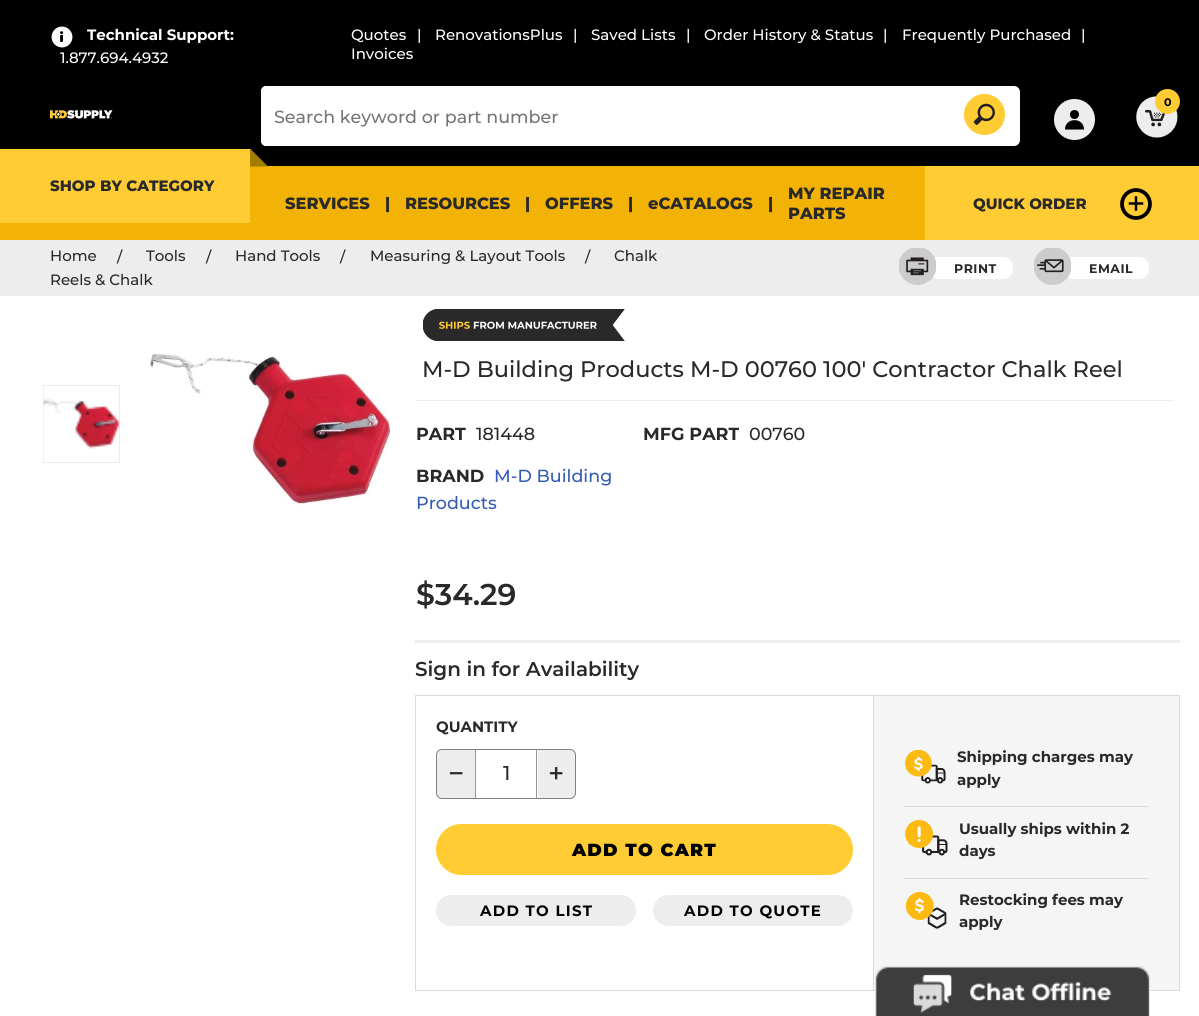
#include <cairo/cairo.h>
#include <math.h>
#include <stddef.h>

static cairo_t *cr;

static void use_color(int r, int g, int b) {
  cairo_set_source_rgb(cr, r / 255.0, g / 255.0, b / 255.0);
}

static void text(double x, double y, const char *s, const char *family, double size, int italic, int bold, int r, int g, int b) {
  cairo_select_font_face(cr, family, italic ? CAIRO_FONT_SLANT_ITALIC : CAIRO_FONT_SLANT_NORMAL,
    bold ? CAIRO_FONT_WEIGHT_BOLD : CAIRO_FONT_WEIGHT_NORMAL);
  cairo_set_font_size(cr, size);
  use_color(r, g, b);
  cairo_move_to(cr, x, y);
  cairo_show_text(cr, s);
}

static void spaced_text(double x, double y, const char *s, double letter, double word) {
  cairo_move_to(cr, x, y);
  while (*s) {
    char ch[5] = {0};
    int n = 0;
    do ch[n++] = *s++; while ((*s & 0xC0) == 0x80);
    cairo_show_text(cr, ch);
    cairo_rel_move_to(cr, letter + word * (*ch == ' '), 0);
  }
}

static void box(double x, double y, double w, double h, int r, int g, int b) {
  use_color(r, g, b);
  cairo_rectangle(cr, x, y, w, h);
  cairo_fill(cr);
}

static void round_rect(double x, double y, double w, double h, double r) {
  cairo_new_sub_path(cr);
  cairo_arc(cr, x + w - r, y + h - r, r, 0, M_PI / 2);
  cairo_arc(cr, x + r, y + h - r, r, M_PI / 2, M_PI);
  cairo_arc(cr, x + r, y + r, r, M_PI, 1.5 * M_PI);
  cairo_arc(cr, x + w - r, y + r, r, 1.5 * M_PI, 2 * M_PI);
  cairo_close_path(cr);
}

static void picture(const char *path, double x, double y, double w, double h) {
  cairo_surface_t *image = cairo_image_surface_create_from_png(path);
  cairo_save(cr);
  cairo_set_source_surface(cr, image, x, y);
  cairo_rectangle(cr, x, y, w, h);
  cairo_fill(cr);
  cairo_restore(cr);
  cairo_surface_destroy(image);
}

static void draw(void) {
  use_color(255, 255, 255);
  cairo_paint(cr);
  box(0, 0, 1199, 166, 0, 0, 0);
  picture("img_01.png", 51, 26, 22, 22);
  picture("img_02.png", 50, 110, 63, 9);
  use_color(255, 255, 255);
  round_rect(261, 86, 759, 60, 6);
  cairo_fill(cr);
  round_rect(261, 86, 752, 60, 5);
  cairo_fill(cr);
  round_rect(261, 86, 752, 60, 6);
  cairo_fill(cr);
  picture("img_03.png", 964, 94, 41, 41);
  use_color(237, 237, 237);
  cairo_arc(cr, 1074.5, 119.5, 20.5, 0, 2 * M_PI);
  cairo_fill(cr);
  use_color(0, 0, 0);
  cairo_arc(cr, 1074.5, 114.5, 4.5, 0, 2 * M_PI);
  cairo_fill(cr);
  cairo_set_fill_rule(cr, CAIRO_FILL_RULE_EVEN_ODD);
  cairo_new_path(cr);
  cairo_move_to(cr, 1084, 129.5);
  cairo_curve_to(cr, 1084, 117, 1065, 117, 1065, 129.5);
  cairo_close_path(cr);
  cairo_fill(cr);
  picture("img_04.png", 1136, 96, 42, 42);
  use_color(255, 204, 51);
  cairo_arc(cr, 1167.5, 101.5, 12.5, 0, 2 * M_PI);
  cairo_fill(cr);
  box(0, 166, 925, 74, 243, 179, 6);
  box(0, 149, 250, 74, 255, 204, 51);
  use_color(165, 124, 2);
  cairo_set_fill_rule(cr, CAIRO_FILL_RULE_WINDING);
  cairo_new_path(cr);
  cairo_move_to(cr, 250, 148.5);
  cairo_line_to(cr, 268, 166.5);
  cairo_line_to(cr, 250, 166.5);
  cairo_close_path(cr);
  cairo_fill(cr);
  box(925, 166, 274, 74, 255, 204, 51);
  cairo_arc(cr, 1136, 204, 14, 0, 2 * M_PI);
  use_color(0, 0, 0);
  cairo_set_line_width(cr, 3.8);
  cairo_stroke(cr);
  cairo_new_path(cr);
  cairo_move_to(cr, 1130, 203.5);
  cairo_line_to(cr, 1142, 203.5);
  cairo_move_to(cr, 1136, 209.5);
  cairo_line_to(cr, 1136, 197.5);
  cairo_set_line_width(cr, 2.5);
  cairo_set_line_cap(cr, CAIRO_LINE_CAP_SQUARE);
  cairo_stroke(cr);
  box(0, 240, 1199, 56, 237, 237, 237);
  use_color(255, 255, 255);
  round_rect(928.5, 256.5, 85, 23, 10.5);
  cairo_fill_preserve(cr);
  use_color(238, 238, 238);
  cairo_set_line_width(cr, 1);
  cairo_set_line_cap(cr, CAIRO_LINE_CAP_BUTT);
  cairo_stroke(cr);
  picture("img_05.png", 899, 248, 37, 37);
  use_color(255, 255, 255);
  round_rect(1063.5, 256.5, 86, 23, 10.5);
  cairo_fill_preserve(cr);
  use_color(238, 238, 238);
  cairo_stroke(cr);
  picture("img_06.png", 1034, 248, 37, 37);
  cairo_rectangle(cr, 43.5, 385.5, 76, 77);
  use_color(237, 237, 237);
  cairo_stroke(cr);
  picture("img_07.png", 43, 387, 76, 74);
  picture("img_08.png", 150, 353, 240, 153);
  picture("img_09.png", 423, 309, 202, 32);
  box(416, 400, 758, 1, 238, 238, 238);
  box(415, 640, 765, 3, 237, 237, 237);
  cairo_rectangle(cr, 415.5, 695.5, 458, 295);
  use_color(219, 219, 219);
  cairo_stroke(cr);
  use_color(237, 237, 237);
  round_rect(436.5, 749.5, 139, 49, 5.5);
  cairo_fill_preserve(cr);
  use_color(128, 128, 128);
  cairo_stroke(cr);
  box(476, 750, 62, 48, 255, 255, 255);
  box(536, 750, 1, 48, 151, 151, 151);
  box(475, 750, 1, 48, 151, 151, 151);
  use_color(255, 204, 51);
  round_rect(438, 826, 413, 47, 23.5);
  cairo_fill_preserve(cr);
  cairo_set_line_width(cr, 4);
  cairo_stroke(cr);
  use_color(237, 237, 237);
  round_rect(437.5, 896.5, 197, 28, 14);
  cairo_fill_preserve(cr);
  cairo_set_line_width(cr, 3);
  cairo_stroke(cr);
  round_rect(654.5, 896.5, 197, 28, 14);
  cairo_fill_preserve(cr);
  cairo_stroke(cr);
  box(874, 696, 305, 294, 245, 245, 245);
  box(874, 695, 306, 1, 219, 219, 219);
  box(1179, 695, 1, 296, 219, 219, 219);
  box(874, 990, 306, 1, 219, 219, 219);
  box(904, 806, 245, 1, 219, 219, 219);
  picture("img_10.png", 905, 749, 41, 35);
  box(904, 878, 245, 1, 219, 219, 219);
  picture("img_11.png", 905, 820, 43, 36);
  picture("img_12.png", 905, 892, 42, 37);
  picture("img_13.png", 875, 966, 275, 50);
  text(87, 40, "Technical Support:", "Montserrat", 15, 0, 1, 255, 255, 255);
  text(60, 63, "1.877.694.4932", "Montserrat Medium", 15, 0, 0, 255, 255, 255);
  text(351, 40, "Quotes", "Montserrat Medium", 15, 0, 0, 255, 255, 255);
  text(417, 40, "|", "Montserrat Medium", 15, 0, 0, 255, 255, 255);
  text(435, 40, "RenovationsPlus", "Montserrat Medium", 15, 0, 0, 255, 255, 255);
  text(573, 40, "|", "Montserrat Medium", 15, 0, 0, 255, 255, 255);
  text(591, 40, "Saved Lists", "Montserrat Medium", 15, 0, 0, 255, 255, 255);
  text(686, 40, "|", "Montserrat Medium", 15, 0, 0, 255, 255, 255);
  text(704, 40, "Order History & Status", "Montserrat Medium", 15, 0, 0, 255, 255, 255);
  text(883, 40, "|", "Montserrat Medium", 15, 0, 0, 255, 255, 255);
  text(902, 40, "Frequently Purchased", "Montserrat Medium", 15, 0, 0, 255, 255, 255);
  text(1081, 40, "|", "Montserrat Medium", 15, 0, 0, 255, 255, 255);
  text(351, 59, "Invoices", "Montserrat Medium", 15, 0, 0, 255, 255, 255);
  text(274, 123, "Search keyword or part number", "Montserrat Medium", 17.5, 0, 0, 117, 117, 117);
  text(1164, 106, "0", "Montserrat", 11, 0, 1, 0, 0, 0);
  text(50, 191, "SHOP BY CATEGORY", "Montserrat ExtraBold", 15, 0, 0, 41, 41, 41);
  text(285, 209, "SERVICES", "Montserrat ExtraBold", 16.25, 0, 0, 41, 41, 41);
  text(385, 209, "|", "Montserrat ExtraBold", 16.25, 0, 0, 41, 41, 41);
  text(405, 209, "RESOURCES", "Montserrat ExtraBold", 16.25, 0, 0, 41, 41, 41);
  text(525, 209, "|", "Montserrat ExtraBold", 16.25, 0, 0, 41, 41, 41);
  text(545, 209, "OFFERS", "Montserrat ExtraBold", 16.25, 0, 0, 41, 41, 41);
  text(628, 209, "|", "Montserrat ExtraBold", 16.25, 0, 0, 41, 41, 41);
  text(648, 209, "eCATALOGS", "Montserrat ExtraBold", 16.25, 0, 0, 41, 41, 41);
  text(768, 209, "|", "Montserrat ExtraBold", 16.25, 0, 0, 41, 41, 41);
  text(788, 199, "MY REPAIR", "Montserrat ExtraBold", 16.25, 0, 0, 41, 41, 41);
  text(788, 219, "PARTS", "Montserrat ExtraBold", 16.25, 0, 0, 41, 41, 41);
  text(973, 209, "QUICK ORDER", "Montserrat ExtraBold", 15, 0, 0, 41, 41, 41);
  text(50, 261, "Home", "Montserrat Medium", 15, 0, 0, 41, 41, 41);
  text(117, 262, "/", "Montserrat Medium", 15, 0, 0, 41, 41, 41);
  text(146, 261, "Tools", "Montserrat Medium", 15, 0, 0, 41, 41, 41);
  text(206, 262, "/", "Montserrat Medium", 15, 0, 0, 41, 41, 41);
  text(235, 261, "Hand Tools", "Montserrat Medium", 15, 0, 0, 41, 41, 41);
  text(340, 262, "/", "Montserrat Medium", 15, 0, 0, 41, 41, 41);
  text(370, 261, "Measuring & Layout Tools", "Montserrat Medium", 15, 0, 0, 41, 41, 41);
  text(585, 262, "/", "Montserrat Medium", 15, 0, 0, 41, 41, 41);
  text(614, 261, "Chalk", "Montserrat Medium", 15, 0, 0, 41, 41, 41);
  text(50, 285, "Reels & Chalk", "Montserrat Medium", 15, 0, 0, 41, 41, 41);
  cairo_select_font_face(cr, "Montserrat", CAIRO_FONT_SLANT_NORMAL, CAIRO_FONT_WEIGHT_BOLD);
  cairo_set_font_size(cr, 12.5);
  spaced_text(954, 273, "PRINT", 0.5, 0);
  spaced_text(1089, 273, "EMAIL", 0.5, 0);
  text(422, 377, "M-D Building Products M-D 00760 100' Contractor Chalk Reel", "Montserrat Medium", 22.5, 0, 0, 41, 41, 41);
  text(416, 440, "PART", "Montserrat", 17.5, 0, 1, 41, 41, 41);
  text(476, 440, "181448", "Montserrat Medium", 17.5, 0, 0, 41, 41, 41);
  text(643, 440, "MFG PART", "Montserrat", 17.5, 0, 1, 41, 41, 41);
  text(749, 440, "00760", "Montserrat Medium", 17.5, 0, 0, 41, 41, 41);
  text(416, 482, "BRAND", "Montserrat", 17.5, 0, 1, 41, 41, 41);
  text(494, 482, "M-D Building", "Montserrat Medium", 17.5, 0, 0, 51, 92, 179);
  text(416, 509, "Products", "Montserrat Medium", 17.5, 0, 0, 51, 92, 179);
  text(416, 605, "$34.29", "Montserrat SemiBold", 30, 0, 0, 41, 41, 41);
  text(415, 676, "Sign in for Availability", "Montserrat SemiBold", 20, 0, 0, 41, 41, 41);
  text(436, 732, "QUANTITY", "Montserrat", 15, 0, 1, 41, 41, 41);
  text(448, 783, "−", "Montserrat Medium", 28, 0, 0, 41, 41, 41);
  text(503, 780, "1", "Montserrat Medium", 20, 0, 0, 41, 41, 41);
  text(548, 783, "+", "Montserrat Medium", 28, 0, 0, 41, 41, 41);
  cairo_select_font_face(cr, "Montserrat Black", CAIRO_FONT_SLANT_NORMAL, CAIRO_FONT_WEIGHT_NORMAL);
  cairo_set_font_size(cr, 17.5);
  use_color(0, 0, 0);
  spaced_text(572, 856, "ADD TO CART", 1.25, 0);
  cairo_select_font_face(cr, "Montserrat", CAIRO_FONT_SLANT_NORMAL, CAIRO_FONT_WEIGHT_BOLD);
  cairo_set_font_size(cr, 15);
  spaced_text(480, 916, "ADD TO LIST", 1.25, 0);
  spaced_text(684, 916, "ADD TO QUOTE", 1.25, 0);
  text(957, 762, "Shipping charges may", "Montserrat", 15, 0, 1, 41, 41, 41);
  text(957, 785, "apply", "Montserrat", 15, 0, 1, 41, 41, 41);
  text(959, 834, "Usually ships within 2", "Montserrat", 15, 0, 1, 41, 41, 41);
  text(959, 856, "days", "Montserrat", 15, 0, 1, 41, 41, 41);
  text(959, 905, "Restocking fees may", "Montserrat", 15, 0, 1, 41, 41, 41);
  text(959, 927, "apply", "Montserrat", 15, 0, 1, 41, 41, 41);
}

int main(void) {
  cairo_surface_t *surface = cairo_image_surface_create(CAIRO_FORMAT_RGB24, 1199, 1016);
  cr = cairo_create(surface);
  cairo_font_options_t *options = cairo_font_options_create();
  cairo_font_options_set_hint_metrics(options, CAIRO_HINT_METRICS_OFF);
  cairo_font_options_set_hint_style(options, CAIRO_HINT_STYLE_NONE);
  cairo_set_font_options(cr, options);
  cairo_set_miter_limit(cr, 4);
  draw();
  cairo_surface_write_to_png(surface, "out.png");
  cairo_font_options_destroy(options);
  cairo_destroy(cr);
  cairo_surface_destroy(surface);
  return 0;
}
